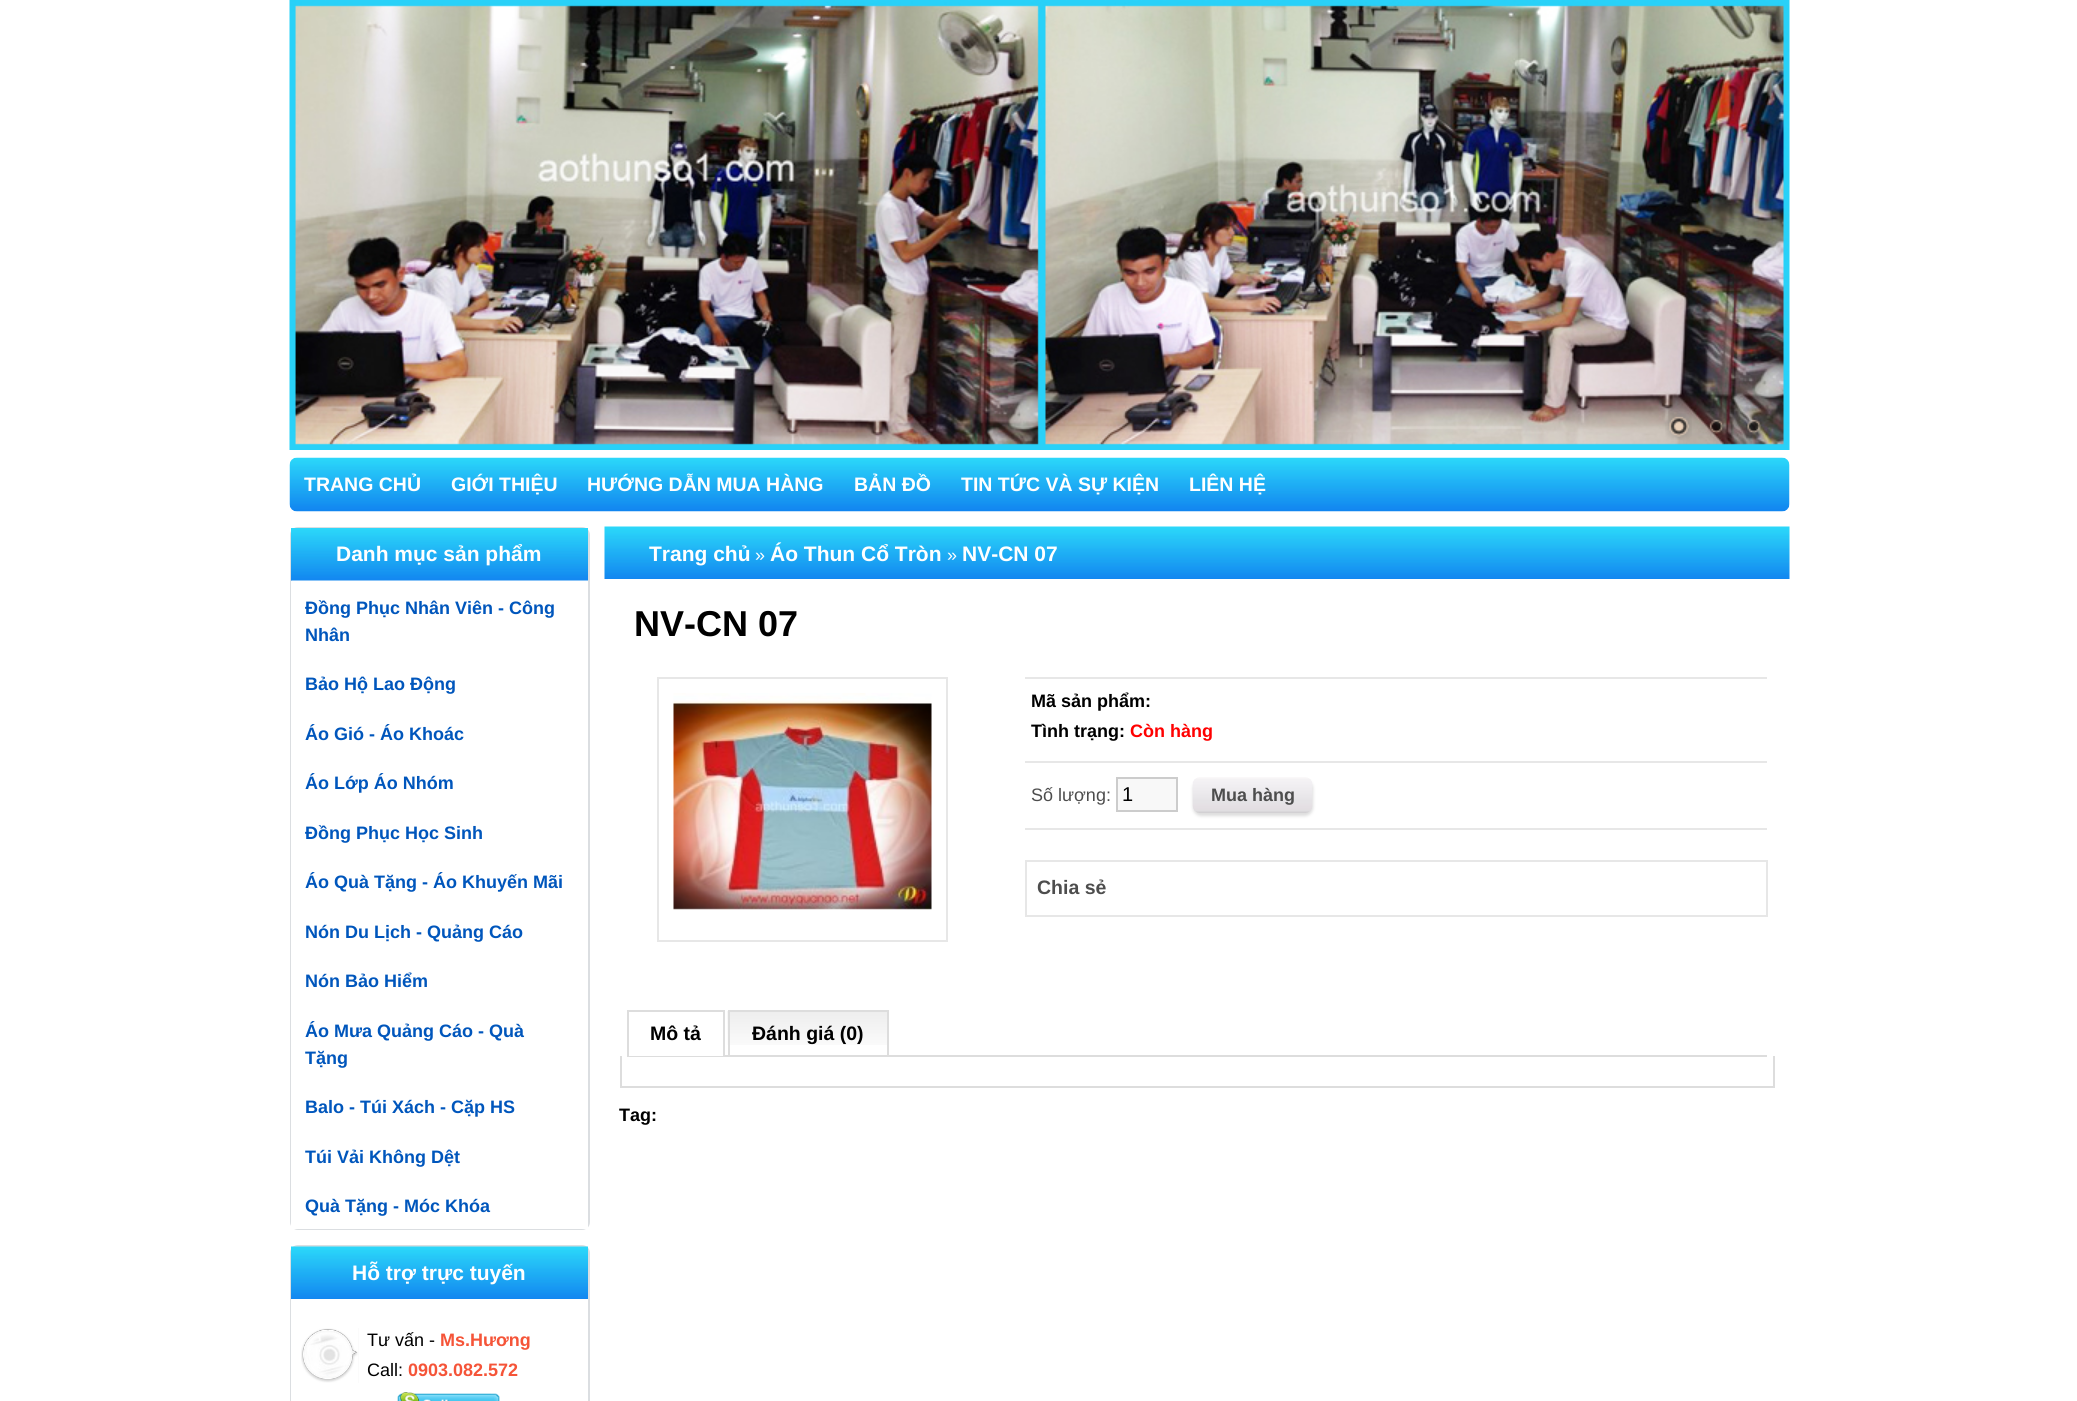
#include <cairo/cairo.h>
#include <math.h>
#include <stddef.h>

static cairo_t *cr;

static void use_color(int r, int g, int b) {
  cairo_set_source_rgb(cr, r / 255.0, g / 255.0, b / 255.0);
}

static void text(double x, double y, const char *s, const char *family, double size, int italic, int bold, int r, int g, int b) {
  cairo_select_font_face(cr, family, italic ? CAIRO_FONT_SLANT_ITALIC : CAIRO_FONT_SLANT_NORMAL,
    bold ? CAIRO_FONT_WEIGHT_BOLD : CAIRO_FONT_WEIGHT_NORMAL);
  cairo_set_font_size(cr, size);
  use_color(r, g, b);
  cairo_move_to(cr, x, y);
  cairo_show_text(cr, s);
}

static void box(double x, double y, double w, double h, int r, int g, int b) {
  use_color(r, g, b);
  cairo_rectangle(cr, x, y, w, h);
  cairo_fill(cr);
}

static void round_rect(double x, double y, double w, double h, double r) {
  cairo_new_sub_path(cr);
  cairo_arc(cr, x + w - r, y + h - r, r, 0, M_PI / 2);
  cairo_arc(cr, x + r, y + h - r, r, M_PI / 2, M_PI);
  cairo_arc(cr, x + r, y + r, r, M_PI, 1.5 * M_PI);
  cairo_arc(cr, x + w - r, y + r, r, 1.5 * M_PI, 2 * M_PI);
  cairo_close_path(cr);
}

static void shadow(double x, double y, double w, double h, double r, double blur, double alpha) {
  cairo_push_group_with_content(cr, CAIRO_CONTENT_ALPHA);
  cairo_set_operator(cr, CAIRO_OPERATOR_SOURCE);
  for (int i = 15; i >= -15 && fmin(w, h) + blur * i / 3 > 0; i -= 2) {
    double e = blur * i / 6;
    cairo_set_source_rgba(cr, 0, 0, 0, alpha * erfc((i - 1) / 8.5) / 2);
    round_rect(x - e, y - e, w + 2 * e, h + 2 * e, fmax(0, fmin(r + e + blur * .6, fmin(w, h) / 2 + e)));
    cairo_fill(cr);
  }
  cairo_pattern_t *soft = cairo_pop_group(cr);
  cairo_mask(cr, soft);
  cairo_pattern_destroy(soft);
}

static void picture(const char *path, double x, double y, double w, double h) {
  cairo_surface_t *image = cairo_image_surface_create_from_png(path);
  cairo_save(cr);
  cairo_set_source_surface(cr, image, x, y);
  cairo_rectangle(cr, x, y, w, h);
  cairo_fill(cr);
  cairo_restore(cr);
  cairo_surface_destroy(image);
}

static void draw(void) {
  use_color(255, 255, 255);
  cairo_paint(cr);
  picture("img_01.png", 289, 0, 1501, 450);
  picture("img_02.png", 1665, 413, 27, 27);
  picture("img_03.png", 1707, 418, 18, 17);
  picture("img_04.png", 1746, 418, 16, 16);
  picture("img_05.png", 289, 457, 1501, 55);
  round_rect(291, 528, 298, 701, 7);
  use_color(219, 222, 225);
  cairo_stroke(cr);
  picture("img_06.png", 291, 528, 297, 53);
  box(291, 581, 1, 598, 255, 255, 255);
  box(291, 1179, 297, 50, 255, 255, 255);
  round_rect(291, 1246, 298, 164, 7);
  use_color(219, 222, 225);
  cairo_stroke(cr);
  picture("img_07.png", 291, 1246, 297, 53);
  box(291, 1299, 1, 102, 255, 255, 255);
  picture("img_08.png", 301, 1328, 58, 55);
  picture("img_09.png", 307, 1333, 38, 43);
  picture("img_10.png", 397, 1392, 103, 9);
  picture("img_11.png", 604, 526, 1186, 53);
  cairo_rectangle(cr, 658, 678, 289, 263);
  use_color(231, 231, 231);
  cairo_stroke(cr);
  picture("img_12.png", 673, 693, 259, 217);
  box(1025, 677, 742, 2, 231, 231, 231);
  box(1025, 761, 742, 2, 231, 231, 231);
  box(1025, 828, 742, 2, 231, 231, 231);
  use_color(248, 248, 248);
  cairo_rectangle(cr, 1117, 778, 60, 33);
  cairo_fill_preserve(cr);
  use_color(204, 204, 204);
  cairo_stroke(cr);
  use_color(221, 221, 221);
  shadow(1193, 780, 120, 36, 8, 1.5, 1);
  picture("img_13.png", 1192, 777, 121, 36);
  box(1025, 860, 742, 2, 231, 231, 231);
  box(1766, 860, 2, 57, 231, 231, 231);
  box(1025, 860, 2, 57, 231, 231, 231);
  box(1026, 915, 740, 2, 231, 231, 231);
  box(627, 1055, 1140, 2, 221, 221, 221);
  box(629, 1055, 94, 1, 255, 255, 255);
  box(627, 1010, 98, 2, 221, 221, 221);
  box(723, 1010, 2, 46, 221, 221, 221);
  box(627, 1010, 2, 46, 221, 221, 221);
  picture("img_14.png", 727, 1011, 160, 34);
  box(728, 1010, 160, 2, 221, 221, 221);
  box(887, 1010, 2, 45, 221, 221, 221);
  box(728, 1010, 2, 45, 221, 221, 221);
  box(1773, 1056, 2, 32, 221, 221, 221);
  box(620, 1086, 1155, 2, 221, 221, 221);
  box(620, 1056, 2, 32, 221, 221, 221);
  text(304, 491, "TRANG CHỦ", "Liberation Sans", 19.5, 0, 1, 255, 255, 255);
  text(451, 491, "GIỚI THIỆU", "Liberation Sans", 19.5, 0, 1, 255, 255, 255);
  text(587, 491, "HƯỚNG DẪN MUA HÀNG", "Liberation Sans", 19.5, 0, 1, 255, 255, 255);
  text(854, 491, "BẢN ĐỒ", "Liberation Sans", 19.5, 0, 1, 255, 255, 255);
  text(961, 491, "TIN TỨC VÀ SỰ KIỆN", "Liberation Sans", 19.5, 0, 1, 255, 255, 255);
  text(1189, 491, "LIÊN HỆ", "Liberation Sans", 19.5, 0, 1, 255, 255, 255);
  text(336, 561, "Danh mục sản phẩm", "Liberation Sans", 21, 0, 1, 255, 255, 255);
  text(305, 614, "Đồng Phục Nhân Viên - Công", "Liberation Sans", 18, 0, 1, 0, 86, 188);
  text(305, 641, "Nhân", "Liberation Sans", 18, 0, 1, 0, 86, 188);
  text(305, 690, "Bảo Hộ Lao Động", "Liberation Sans", 18, 0, 1, 0, 86, 188);
  text(305, 740, "Áo Gió - Áo Khoác", "Liberation Sans", 18, 0, 1, 0, 86, 188);
  text(305, 789, "Áo Lớp Áo Nhóm", "Liberation Sans", 18, 0, 1, 0, 86, 188);
  text(305, 839, "Đồng Phục Học Sinh", "Liberation Sans", 18, 0, 1, 0, 86, 188);
  text(305, 888, "Áo Quà Tặng - Áo Khuyến Mãi", "Liberation Sans", 18, 0, 1, 0, 86, 188);
  text(305, 938, "Nón Du Lịch - Quảng Cáo", "Liberation Sans", 18, 0, 1, 0, 86, 188);
  text(305, 987, "Nón Bảo Hiểm", "Liberation Sans", 18, 0, 1, 0, 86, 188);
  text(305, 1037, "Áo Mưa Quảng Cáo - Quà", "Liberation Sans", 18, 0, 1, 0, 86, 188);
  text(305, 1064, "Tặng", "Liberation Sans", 18, 0, 1, 0, 86, 188);
  text(305, 1113, "Balo - Túi Xách - Cặp HS", "Liberation Sans", 18, 0, 1, 0, 86, 188);
  text(305, 1163, "Túi Vải Không Dệt", "Liberation Sans", 18, 0, 1, 0, 86, 188);
  text(305, 1212, "Quà Tặng - Móc Khóa", "Liberation Sans", 18, 0, 1, 0, 86, 188);
  text(352, 1280, "Hỗ trợ trực tuyến", "Liberation Sans", 21, 0, 1, 255, 255, 255);
  text(367, 1346, "Tư vấn -", "Liberation Sans", 18, 0, 0, 0, 0, 0);
  text(440, 1346, "Ms.Hương", "Liberation Sans", 18, 0, 1, 245, 84, 56);
  text(367, 1376, "Call:", "Liberation Sans", 18, 0, 0, 0, 0, 0);
  text(408, 1376, "0903.082.572", "Liberation Sans", 18, 0, 1, 245, 84, 56);
  text(649, 561, "Trang chủ", "Liberation Sans", 21, 0, 1, 255, 255, 255);
  text(755, 561, "»", "Liberation Sans", 18, 0, 0, 255, 255, 255);
  text(770, 561, "Áo Thun Cổ Tròn", "Liberation Sans", 21, 0, 1, 255, 255, 255);
  text(947, 561, "»", "Liberation Sans", 18, 0, 0, 255, 255, 255);
  text(962, 561, "NV-CN 07", "Liberation Sans", 21, 0, 1, 255, 255, 255);
  text(634, 636, "NV-CN 07", "Liberation Sans", 36, 0, 1, 0, 0, 0);
  text(1031, 707, "Mã sản phẩm:", "Liberation Sans", 18, 0, 1, 0, 0, 0);
  text(1031, 737, "Tình trạng:", "Liberation Sans", 18, 0, 1, 0, 0, 0);
  text(1130, 737, "Còn hàng", "Liberation Sans", 18, 0, 1, 255, 0, 0);
  text(1031, 801, "Số lượng:", "Liberation Sans", 18, 0, 0, 77, 77, 77);
  text(1122, 801, "1", "Liberation Sans", 20, 0, 0, 0, 0, 0);
  text(1211, 801, "Mua hàng", "Liberation Sans", 18, 0, 1, 77, 77, 77);
  text(1037, 894, "Chia sẻ", "Liberation Sans", 19.5, 0, 1, 77, 77, 77);
  text(650, 1040, "Mô tả", "Liberation Sans", 19.5, 0, 1, 0, 0, 0);
  text(752, 1040, "Đánh giá (0)", "Liberation Sans", 19.5, 0, 1, 0, 0, 0);
  text(619, 1121, "Tag:", "Liberation Sans", 18, 0, 1, 0, 0, 0);
}

int main(void) {
  cairo_surface_t *surface = cairo_image_surface_create(CAIRO_FORMAT_RGB24, 2077, 1401);
  cr = cairo_create(surface);
  cairo_font_options_t *options = cairo_font_options_create();
  cairo_font_options_set_hint_metrics(options, CAIRO_HINT_METRICS_OFF);
  cairo_font_options_set_hint_style(options, CAIRO_HINT_STYLE_NONE);
  cairo_set_font_options(cr, options);
  cairo_set_miter_limit(cr, 4);
  draw();
  cairo_surface_write_to_png(surface, "out.png");
  cairo_font_options_destroy(options);
  cairo_destroy(cr);
  cairo_surface_destroy(surface);
  return 0;
}
